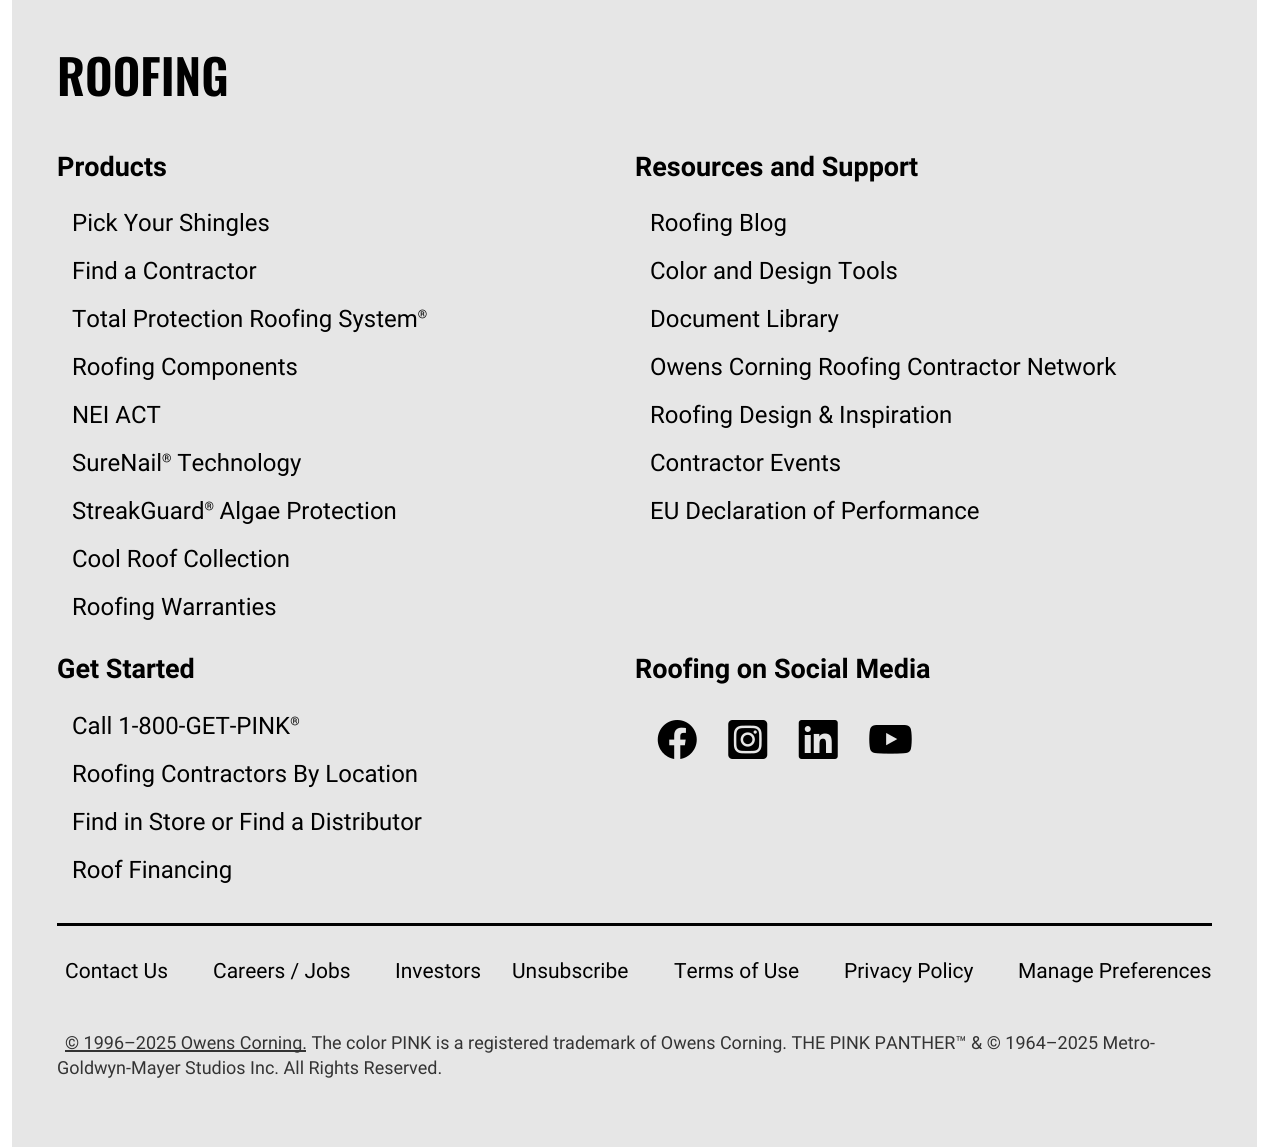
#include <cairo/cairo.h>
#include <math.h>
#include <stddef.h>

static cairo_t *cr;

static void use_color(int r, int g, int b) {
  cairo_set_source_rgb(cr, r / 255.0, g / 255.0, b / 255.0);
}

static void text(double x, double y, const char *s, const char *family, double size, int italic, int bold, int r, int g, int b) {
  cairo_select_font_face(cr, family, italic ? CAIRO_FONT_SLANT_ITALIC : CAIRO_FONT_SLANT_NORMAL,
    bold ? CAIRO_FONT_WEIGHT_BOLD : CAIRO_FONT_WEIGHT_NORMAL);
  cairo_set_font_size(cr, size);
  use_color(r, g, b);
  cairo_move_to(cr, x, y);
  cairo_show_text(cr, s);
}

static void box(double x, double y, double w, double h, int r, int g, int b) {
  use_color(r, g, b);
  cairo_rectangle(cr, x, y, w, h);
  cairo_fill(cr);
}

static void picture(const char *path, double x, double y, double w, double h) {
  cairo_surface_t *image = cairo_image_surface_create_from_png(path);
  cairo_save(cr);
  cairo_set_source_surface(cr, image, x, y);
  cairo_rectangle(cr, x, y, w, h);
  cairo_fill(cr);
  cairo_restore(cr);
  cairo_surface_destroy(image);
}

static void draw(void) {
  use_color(255, 255, 255);
  cairo_paint(cr);
  box(12, 0, 1245, 1147, 230, 230, 230);
  picture("img_01.png", 657, 720, 40, 39);
  picture("img_02.png", 728, 720, 40, 39);
  picture("img_03.png", 798, 720, 40, 39);
  picture("img_04.png", 869, 725, 43, 29);
  box(57, 923, 1155, 3, 0, 0, 0);
  box(65, 1050, 241, 2, 51, 51, 51);
  text(57, 96, "ROOFING", "Oswald SemiBold", 48, 0, 0, 0, 0, 0);
  text(57, 176, "Products", "Roboto", 27, 0, 1, 0, 0, 0);
  text(72, 231, "Pick Your Shingles", "Roboto", 24, 0, 0, 0, 0, 0);
  text(72, 279, "Find a Contractor", "Roboto", 24, 0, 0, 0, 0, 0);
  text(72, 327, "Total Protection Roofing System®", "Roboto", 24, 0, 0, 0, 0, 0);
  text(72, 375, "Roofing Components", "Roboto", 24, 0, 0, 0, 0, 0);
  text(72, 423, "NEI ACT", "Roboto", 24, 0, 0, 0, 0, 0);
  text(72, 471, "SureNail® Technology", "Roboto", 24, 0, 0, 0, 0, 0);
  text(72, 519, "StreakGuard® Algae Protection", "Roboto", 24, 0, 0, 0, 0, 0);
  text(72, 567, "Cool Roof Collection", "Roboto", 24, 0, 0, 0, 0, 0);
  text(72, 615, "Roofing Warranties", "Roboto", 24, 0, 0, 0, 0, 0);
  text(635, 176, "Resources and Support", "Roboto", 27, 0, 1, 0, 0, 0);
  text(650, 231, "Roofing Blog", "Roboto", 24, 0, 0, 0, 0, 0);
  text(650, 279, "Color and Design Tools", "Roboto", 24, 0, 0, 0, 0, 0);
  text(650, 327, "Document Library", "Roboto", 24, 0, 0, 0, 0, 0);
  text(650, 375, "Owens Corning Roofing Contractor Network", "Roboto", 24, 0, 0, 0, 0, 0);
  text(650, 423, "Roofing Design & Inspiration", "Roboto", 24, 0, 0, 0, 0, 0);
  text(650, 471, "Contractor Events", "Roboto", 24, 0, 0, 0, 0, 0);
  text(650, 519, "EU Declaration of Performance", "Roboto", 24, 0, 0, 0, 0, 0);
  text(57, 678, "Get Started", "Roboto", 27, 0, 1, 0, 0, 0);
  text(72, 734, "Call 1-800-GET-PINK®", "Roboto", 24, 0, 0, 0, 0, 0);
  text(72, 782, "Roofing Contractors By Location", "Roboto", 24, 0, 0, 0, 0, 0);
  text(72, 830, "Find in Store or Find a Distributor", "Roboto", 24, 0, 0, 0, 0, 0);
  text(72, 878, "Roof Financing", "Roboto", 24, 0, 0, 0, 0, 0);
  text(635, 678, "Roofing on Social Media", "Roboto", 27, 0, 1, 0, 0, 0);
  text(65, 978, "Contact Us", "Roboto", 21, 0, 0, 0, 0, 0);
  text(213, 978, "Careers / Jobs", "Roboto", 21, 0, 0, 0, 0, 0);
  text(395, 978, "Investors", "Roboto", 21, 0, 0, 0, 0, 0);
  text(512, 978, "Unsubscribe", "Roboto", 21, 0, 0, 0, 0, 0);
  text(674, 978, "Terms of Use", "Roboto", 21, 0, 0, 0, 0, 0);
  text(844, 978, "Privacy Policy", "Roboto", 21, 0, 0, 0, 0, 0);
  text(1018, 978, "Manage Preferences", "Roboto", 21, 0, 0, 0, 0, 0);
  text(65, 1049, "© 1996–2025 Owens Corning. The color PINK is a registered trademark of Owens Corning. THE PINK PANTHER™ & © 1964–2025 Metro-", "Roboto", 18, 0, 0, 51, 51, 51);
  text(57, 1074, "Goldwyn-Mayer Studios Inc. All Rights Reserved.", "Roboto", 18, 0, 0, 51, 51, 51);
}

int main(void) {
  cairo_surface_t *surface = cairo_image_surface_create(CAIRO_FORMAT_RGB24, 1269, 1147);
  cr = cairo_create(surface);
  cairo_font_options_t *options = cairo_font_options_create();
  cairo_font_options_set_hint_metrics(options, CAIRO_HINT_METRICS_OFF);
  cairo_font_options_set_hint_style(options, CAIRO_HINT_STYLE_NONE);
  cairo_set_font_options(cr, options);
  cairo_set_miter_limit(cr, 4);
  draw();
  cairo_surface_write_to_png(surface, "out.png");
  cairo_font_options_destroy(options);
  cairo_destroy(cr);
  cairo_surface_destroy(surface);
  return 0;
}
